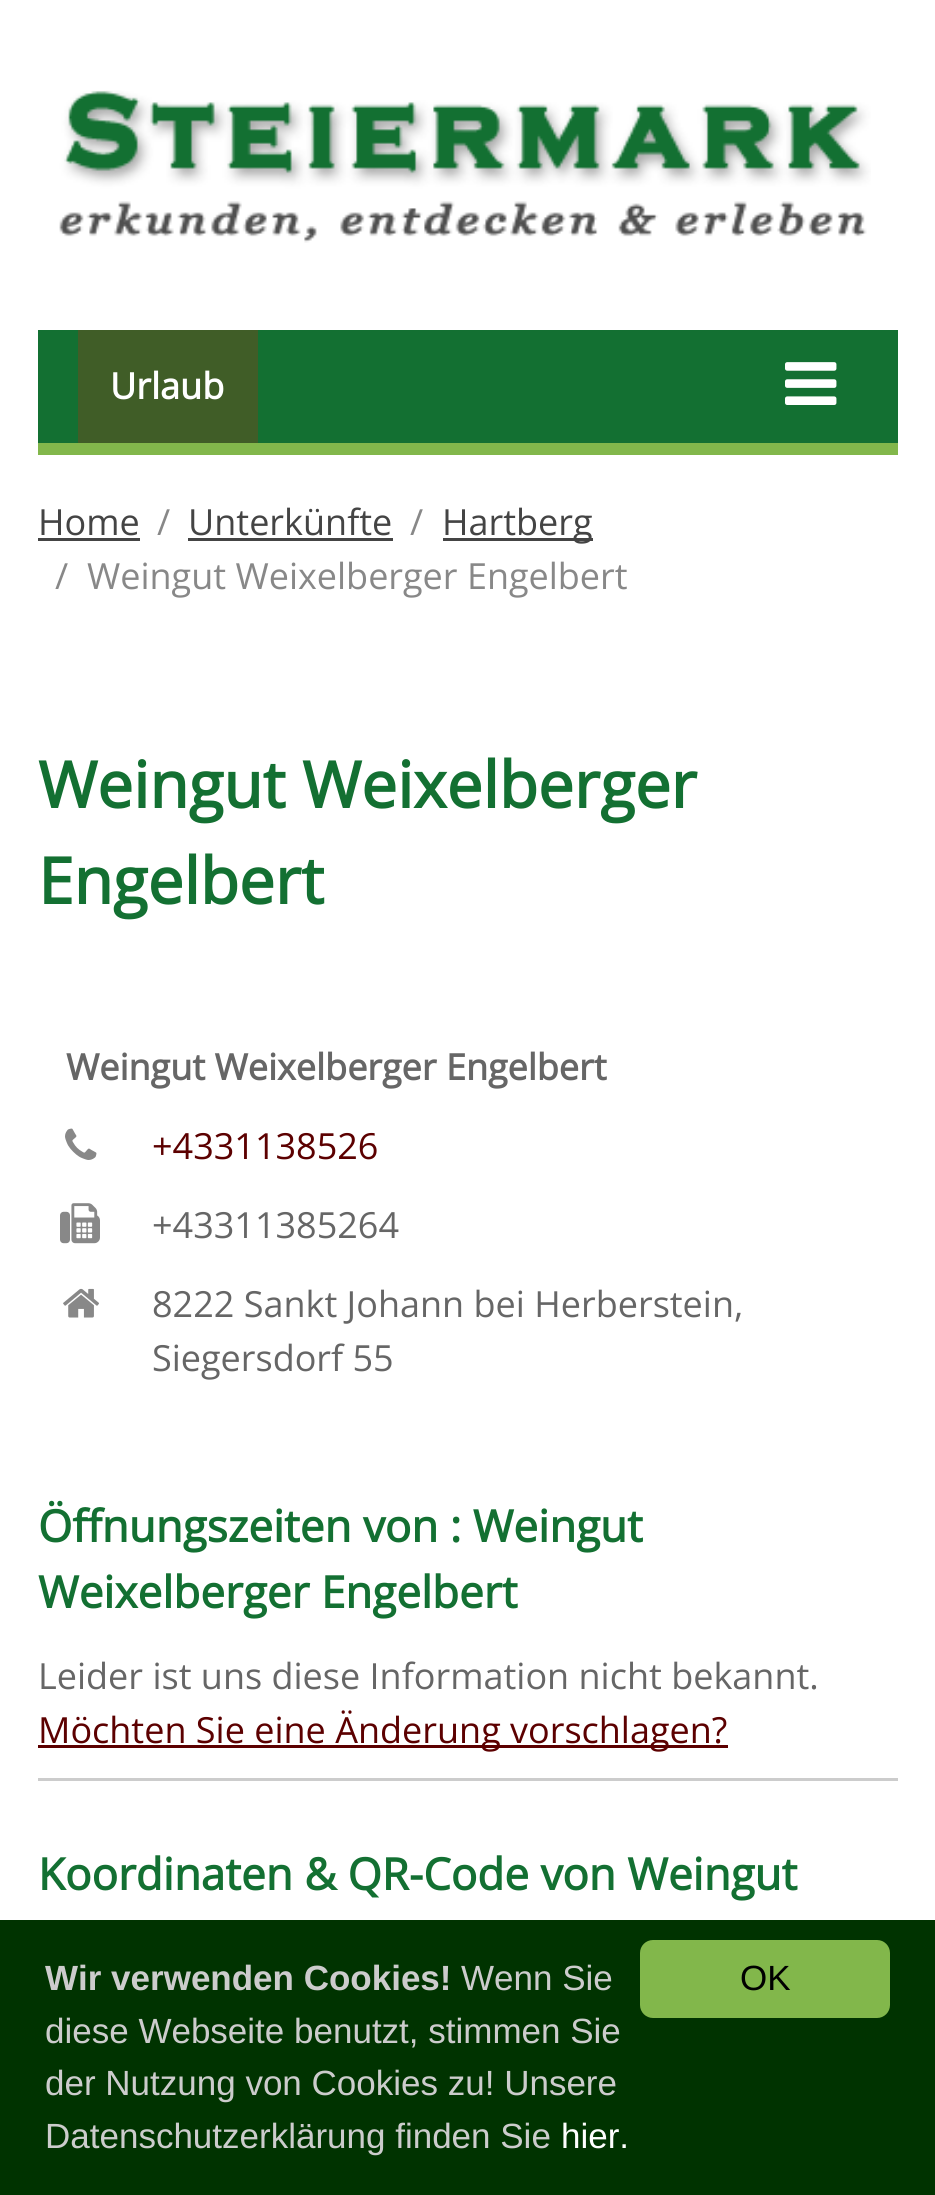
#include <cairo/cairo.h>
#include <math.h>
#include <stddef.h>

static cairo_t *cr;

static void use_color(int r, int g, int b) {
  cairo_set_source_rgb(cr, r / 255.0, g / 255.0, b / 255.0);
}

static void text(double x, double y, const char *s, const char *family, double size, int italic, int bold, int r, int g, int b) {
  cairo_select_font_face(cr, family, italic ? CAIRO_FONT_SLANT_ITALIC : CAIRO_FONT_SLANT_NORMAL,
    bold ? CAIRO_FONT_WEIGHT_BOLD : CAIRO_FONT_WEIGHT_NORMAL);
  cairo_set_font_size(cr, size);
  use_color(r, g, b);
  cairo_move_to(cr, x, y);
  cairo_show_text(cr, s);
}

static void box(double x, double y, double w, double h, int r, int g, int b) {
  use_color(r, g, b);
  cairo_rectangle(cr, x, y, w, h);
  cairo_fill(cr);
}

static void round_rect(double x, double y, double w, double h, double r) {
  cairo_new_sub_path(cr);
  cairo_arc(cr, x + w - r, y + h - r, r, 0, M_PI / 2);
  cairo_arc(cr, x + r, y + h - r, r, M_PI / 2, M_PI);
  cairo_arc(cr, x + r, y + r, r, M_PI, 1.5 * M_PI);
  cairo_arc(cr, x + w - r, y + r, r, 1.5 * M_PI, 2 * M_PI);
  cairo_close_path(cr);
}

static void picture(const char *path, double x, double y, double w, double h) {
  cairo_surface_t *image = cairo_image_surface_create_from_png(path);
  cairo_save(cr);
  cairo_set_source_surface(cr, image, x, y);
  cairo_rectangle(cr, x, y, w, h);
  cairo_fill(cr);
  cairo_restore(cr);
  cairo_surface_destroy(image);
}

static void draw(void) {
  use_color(255, 255, 255);
  cairo_paint(cr);
  picture("img_01.png", 59, 90, 812, 153);
  box(38, 330, 860, 113, 19, 112, 50);
  box(38, 443, 860, 12, 130, 183, 75);
  box(78, 330, 180, 113, 64, 93, 39);
  picture("img_02.png", 785, 362, 52, 43);
  box(38, 538, 102, 3, 68, 68, 68);
  box(188, 538, 205, 3, 68, 68, 68);
  box(443, 538, 150, 3, 68, 68, 68);
  picture("img_03.png", 65, 1128, 32, 32);
  picture("img_04.png", 60, 1203, 40, 41);
  picture("img_05.png", 63, 1288, 36, 30);
  box(38, 1778, 860, 3, 204, 204, 204);
  box(38, 1745, 690, 3, 92, 0, 0);
  box(0, 1920, 935, 275, 0, 51, 0);
  use_color(130, 183, 75);
  round_rect(640, 1940, 250, 78, 13);
  cairo_fill(cr);
  text(110, 399, "Urlaub", "Open Sans", 36, 0, 1, 255, 255, 255);
  text(38, 535, "Home", "Open Sans", 36, 0, 0, 68, 68, 68);
  text(157, 535, "/", "Open Sans", 36, 0, 0, 136, 136, 136);
  text(188, 535, "Unterkünfte", "Open Sans", 36, 0, 0, 68, 68, 68);
  text(410, 535, "/", "Open Sans", 36, 0, 0, 136, 136, 136);
  text(442, 535, "Hartberg", "Open Sans", 36, 0, 0, 68, 68, 68);
  text(55, 589, "/", "Open Sans", 36, 0, 0, 136, 136, 136);
  text(87, 589, "Weingut Weixelberger Engelbert", "Open Sans", 36, 0, 0, 136, 136, 136);
  text(38, 808, "Weingut Weixelberger", "Open Sans", 64, 0, 1, 19, 112, 50);
  text(38, 904, "Engelbert", "Open Sans", 64, 0, 1, 19, 112, 50);
  text(66, 1080, "Weingut Weixelberger Engelbert", "Open Sans", 36, 0, 1, 102, 102, 102);
  text(152, 1159, "+4331138526", "Open Sans", 36, 0, 0, 92, 0, 0);
  text(152, 1238, "+43311385264", "Open Sans", 36, 0, 0, 102, 102, 102);
  text(152, 1317, "8222 Sankt Johann bei Herberstein", "Open Sans", 36, 0, 0, 102, 102, 102);
  text(734, 1317, ",", "Open Sans", 36, 0, 0, 102, 102, 102);
  text(152, 1371, "Siegersdorf 55", "Open Sans", 36, 0, 0, 102, 102, 102);
  text(38, 1542, "Öffnungszeiten von : Weingut", "Open Sans", 44, 0, 1, 19, 112, 50);
  text(38, 1608, "Weixelberger Engelbert", "Open Sans", 44, 0, 1, 19, 112, 50);
  text(38, 1689, "Leider ist uns diese Information nicht bekannt.", "Open Sans", 36, 0, 0, 102, 102, 102);
  text(38, 1743, "Möchten Sie eine Änderung vorschlagen?", "Open Sans", 36, 0, 0, 92, 0, 0);
  text(38, 1890, "Koordinaten & QR-Code von Weingut", "Open Sans", 44, 0, 1, 19, 112, 50);
  text(45, 1990, "Wir verwenden Cookies!", "Liberation Sans", 35, 0, 1, 204, 204, 204);
  text(461, 1990, "Wenn Sie", "Liberation Sans", 35, 0, 0, 204, 204, 204);
  text(45, 2043, "diese Webseite benutzt, stimmen Sie", "Liberation Sans", 35, 0, 0, 204, 204, 204);
  text(45, 2095, "der Nutzung von Cookies zu! Unsere", "Liberation Sans", 35, 0, 0, 204, 204, 204);
  text(45, 2148, "Datenschutzerklärung finden Sie", "Liberation Sans", 35, 0, 0, 204, 204, 204);
  text(561, 2148, "hier.", "Liberation Sans", 35, 0, 0, 255, 255, 255);
  text(740, 1990, "OK", "Liberation Sans", 35, 0, 0, 0, 0, 0);
}

int main(void) {
  cairo_surface_t *surface = cairo_image_surface_create(CAIRO_FORMAT_RGB24, 935, 2195);
  cr = cairo_create(surface);
  cairo_font_options_t *options = cairo_font_options_create();
  cairo_font_options_set_hint_metrics(options, CAIRO_HINT_METRICS_OFF);
  cairo_font_options_set_hint_style(options, CAIRO_HINT_STYLE_NONE);
  cairo_set_font_options(cr, options);
  cairo_set_miter_limit(cr, 4);
  draw();
  cairo_surface_write_to_png(surface, "out.png");
  cairo_font_options_destroy(options);
  cairo_destroy(cr);
  cairo_surface_destroy(surface);
  return 0;
}
